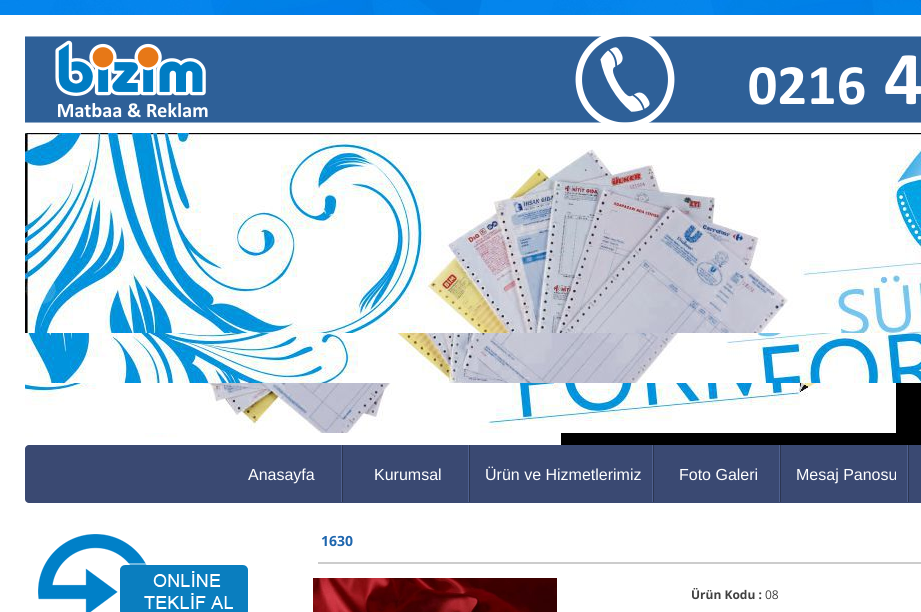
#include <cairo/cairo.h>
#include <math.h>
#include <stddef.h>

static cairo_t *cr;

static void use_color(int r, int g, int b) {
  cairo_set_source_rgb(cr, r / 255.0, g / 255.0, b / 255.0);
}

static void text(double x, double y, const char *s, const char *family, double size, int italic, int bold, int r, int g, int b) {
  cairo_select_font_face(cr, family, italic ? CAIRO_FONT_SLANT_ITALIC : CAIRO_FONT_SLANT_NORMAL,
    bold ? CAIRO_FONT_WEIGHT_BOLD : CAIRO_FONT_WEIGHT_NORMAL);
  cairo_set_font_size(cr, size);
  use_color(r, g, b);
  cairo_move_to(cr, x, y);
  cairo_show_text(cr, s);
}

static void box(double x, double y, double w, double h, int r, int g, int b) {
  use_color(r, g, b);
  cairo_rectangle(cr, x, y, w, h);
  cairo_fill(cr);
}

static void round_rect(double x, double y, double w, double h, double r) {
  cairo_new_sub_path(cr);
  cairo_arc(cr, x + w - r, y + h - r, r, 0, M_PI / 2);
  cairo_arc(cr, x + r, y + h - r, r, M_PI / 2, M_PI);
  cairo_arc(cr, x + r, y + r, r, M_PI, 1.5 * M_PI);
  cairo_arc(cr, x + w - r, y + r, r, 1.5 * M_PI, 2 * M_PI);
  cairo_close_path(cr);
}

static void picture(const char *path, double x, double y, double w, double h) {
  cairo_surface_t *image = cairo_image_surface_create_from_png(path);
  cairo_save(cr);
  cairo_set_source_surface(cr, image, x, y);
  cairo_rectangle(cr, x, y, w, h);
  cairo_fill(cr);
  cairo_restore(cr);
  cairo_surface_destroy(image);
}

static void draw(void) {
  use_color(255, 255, 255);
  cairo_paint(cr);
  picture("img_01.png", 0, 0, 921, 15);
  picture("img_02.png", 25, 36, 896, 87);
  box(561, 383, 360, 62, 0, 0, 0);
  picture("img_03.png", 25, 133, 896, 50);
  picture("img_04.png", 25, 183, 896, 50);
  picture("img_05.png", 25, 233, 896, 50);
  picture("img_06.png", 25, 283, 896, 50);
  picture("img_07.png", 25, 333, 896, 50);
  picture("img_08.png", 25, 383, 871, 50);
  picture("img_09.png", 25, 433, 536, 12);
  picture("img_10.png", 26, 282, 30, 22);
  use_color(58, 73, 114);
  round_rect(25, 445, 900, 58, 4);
  cairo_fill(cr);
  box(341, 445, 1, 57, 79, 97, 145);
  box(468, 445, 1, 57, 79, 97, 145);
  box(342, 445, 1, 57, 43, 53, 80);
  box(652, 445, 1, 57, 79, 97, 145);
  box(469, 445, 1, 57, 43, 53, 80);
  box(779, 445, 1, 57, 79, 97, 145);
  box(653, 445, 1, 57, 43, 53, 80);
  box(907, 445, 1, 57, 79, 97, 145);
  box(780, 445, 1, 57, 43, 53, 80);
  box(908, 445, 1, 57, 43, 53, 80);
  picture("img_11.png", 38, 534, 210, 78);
  box(318, 562, 603, 2, 204, 204, 204);
  picture("img_12.png", 313, 578, 244, 34);
  text(248, 480, "Anasayfa", "Liberation Sans", 16, 0, 0, 255, 255, 255);
  text(374, 480, "Kurumsal", "Liberation Sans", 16, 0, 0, 255, 255, 255);
  text(485, 480, "Ürün ve Hizmetlerimiz", "Liberation Sans", 16, 0, 0, 255, 255, 255);
  text(679, 480, "Foto Galeri", "Liberation Sans", 16, 0, 0, 255, 255, 255);
  text(796, 480, "Mesaj Panosu", "Liberation Sans", 16, 0, 0, 255, 255, 255);
  text(321, 546, "1630", "Open Sans", 14, 0, 1, 30, 102, 174);
  text(691, 599, "Ürün Kodu :", "Open Sans", 12, 0, 1, 64, 64, 64);
  text(765, 599, "08", "Open Sans", 12, 0, 0, 64, 64, 64);
}

int main(void) {
  cairo_surface_t *surface = cairo_image_surface_create(CAIRO_FORMAT_RGB24, 921, 612);
  cr = cairo_create(surface);
  cairo_font_options_t *options = cairo_font_options_create();
  cairo_font_options_set_hint_metrics(options, CAIRO_HINT_METRICS_OFF);
  cairo_font_options_set_hint_style(options, CAIRO_HINT_STYLE_NONE);
  cairo_set_font_options(cr, options);
  cairo_set_miter_limit(cr, 4);
  draw();
  cairo_surface_write_to_png(surface, "out.png");
  cairo_font_options_destroy(options);
  cairo_destroy(cr);
  cairo_surface_destroy(surface);
  return 0;
}
